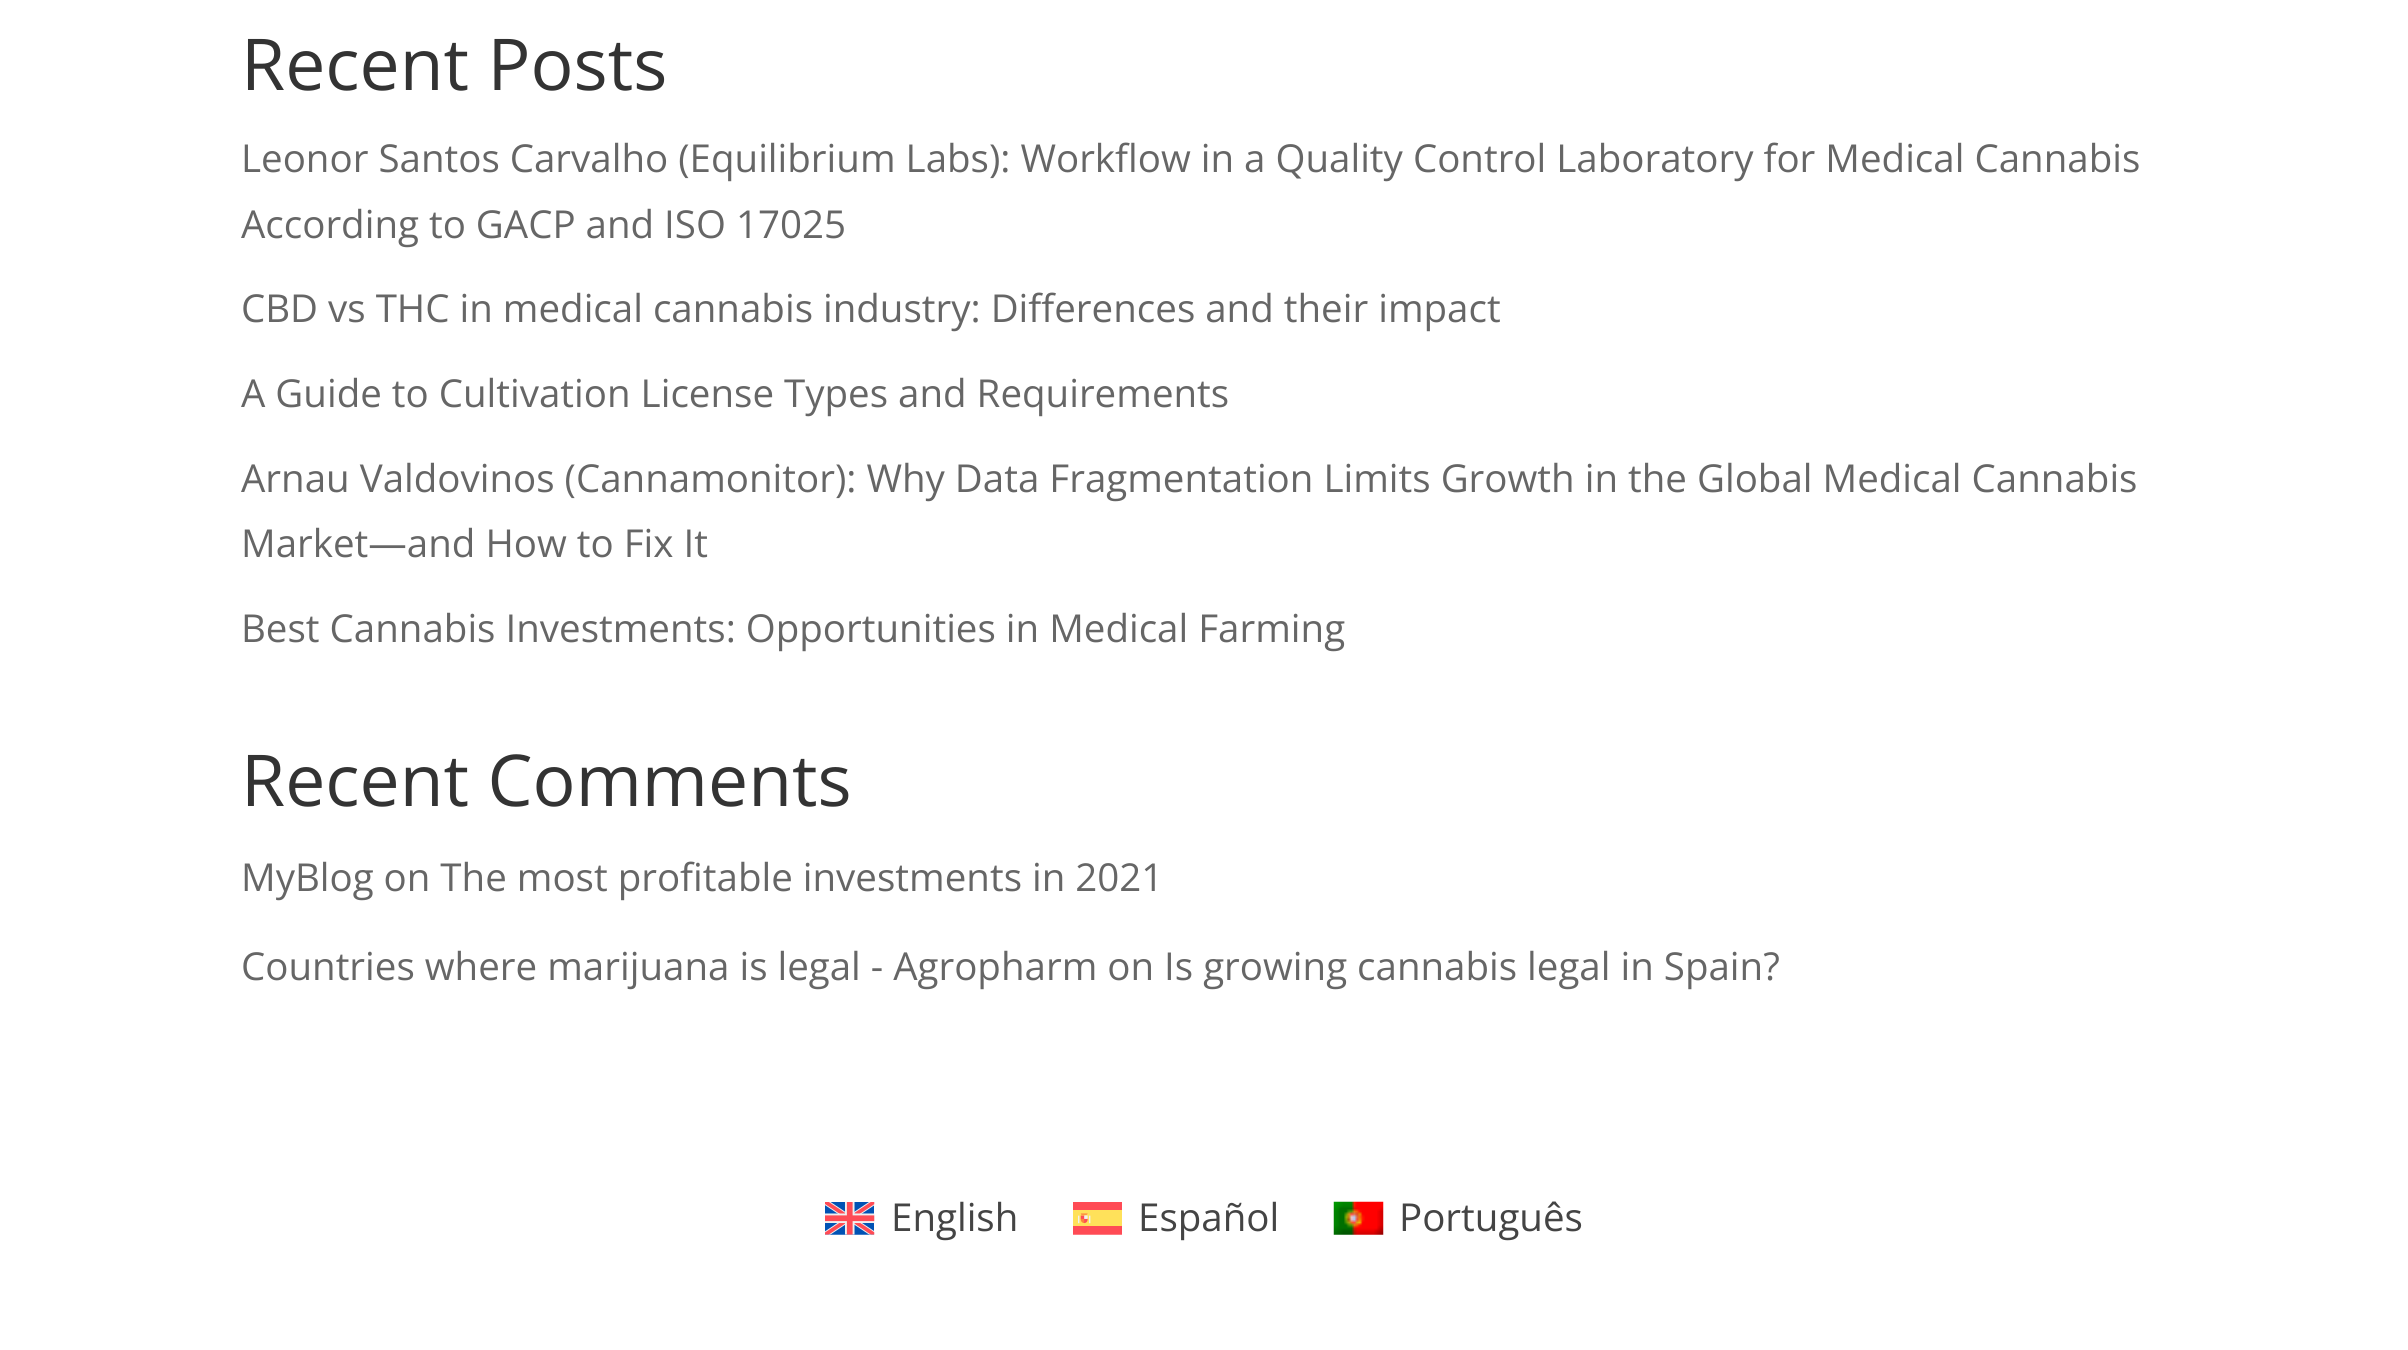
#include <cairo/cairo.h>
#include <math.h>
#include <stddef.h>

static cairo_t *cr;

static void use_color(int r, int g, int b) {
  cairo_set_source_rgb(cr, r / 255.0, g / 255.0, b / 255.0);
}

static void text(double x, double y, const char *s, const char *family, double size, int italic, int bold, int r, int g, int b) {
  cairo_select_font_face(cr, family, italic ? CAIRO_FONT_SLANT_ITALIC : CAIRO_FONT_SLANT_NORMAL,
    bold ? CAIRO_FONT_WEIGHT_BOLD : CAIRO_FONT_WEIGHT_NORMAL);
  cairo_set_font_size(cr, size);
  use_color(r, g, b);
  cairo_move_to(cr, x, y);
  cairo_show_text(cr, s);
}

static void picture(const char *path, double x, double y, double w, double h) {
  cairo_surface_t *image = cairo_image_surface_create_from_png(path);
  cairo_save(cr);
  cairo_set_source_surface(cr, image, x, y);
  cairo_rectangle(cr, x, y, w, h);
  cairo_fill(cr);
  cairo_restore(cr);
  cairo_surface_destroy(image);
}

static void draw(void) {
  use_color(255, 255, 255);
  cairo_paint(cr);
  picture("img_01.png", 825, 1202, 50, 33);
  picture("img_02.png", 1073, 1202, 49, 33);
  picture("img_03.png", 1333, 1201, 51, 34);
  text(241, 90, "Recent Posts", "Open Sans", 71.5, 0, 0, 51, 51, 51);
  text(241, 172, "Leonor Santos Carvalho (Equilibrium Labs): Workflow in a Quality Control Laboratory for Medical Cannabis", "Open Sans", 38.5, 0, 0, 102, 102, 102);
  text(241, 238, "According to GACP and ISO 17025", "Open Sans", 38.5, 0, 0, 102, 102, 102);
  text(241, 322, "CBD vs THC in medical cannabis industry: Differences and their impact", "Open Sans", 38.5, 0, 0, 102, 102, 102);
  text(241, 407, "A Guide to Cultivation License Types and Requirements", "Open Sans", 38.5, 0, 0, 102, 102, 102);
  text(241, 492, "Arnau Valdovinos (Cannamonitor): Why Data Fragmentation Limits Growth in the Global Medical Cannabis", "Open Sans", 38.5, 0, 0, 102, 102, 102);
  text(241, 557, "Market—and How to Fix It", "Open Sans", 38.5, 0, 0, 102, 102, 102);
  text(241, 642, "Best Cannabis Investments: Opportunities in Medical Farming", "Open Sans", 38.5, 0, 0, 102, 102, 102);
  text(241, 806, "Recent Comments", "Open Sans", 71.5, 0, 0, 51, 51, 51);
  text(241, 891, "MyBlog on The most profitable investments in 2021", "Open Sans", 38.5, 0, 0, 102, 102, 102);
  text(241, 980, "Countries where marijuana is legal - Agropharm on Is growing cannabis legal in Spain?", "Open Sans", 38.5, 0, 0, 102, 102, 102);
  text(891, 1231, "English", "Open Sans", 38.5, 0, 0, 68, 68, 68);
  text(1138, 1231, "Español", "Open Sans", 38.5, 0, 0, 68, 68, 68);
  text(1399, 1231, "Português", "Open Sans", 38.5, 0, 0, 68, 68, 68);
}

int main(void) {
  cairo_surface_t *surface = cairo_image_surface_create(CAIRO_FORMAT_RGB24, 2408, 1350);
  cr = cairo_create(surface);
  cairo_font_options_t *options = cairo_font_options_create();
  cairo_font_options_set_hint_metrics(options, CAIRO_HINT_METRICS_OFF);
  cairo_font_options_set_hint_style(options, CAIRO_HINT_STYLE_NONE);
  cairo_set_font_options(cr, options);
  cairo_set_miter_limit(cr, 4);
  draw();
  cairo_surface_write_to_png(surface, "out.png");
  cairo_font_options_destroy(options);
  cairo_destroy(cr);
  cairo_surface_destroy(surface);
  return 0;
}
